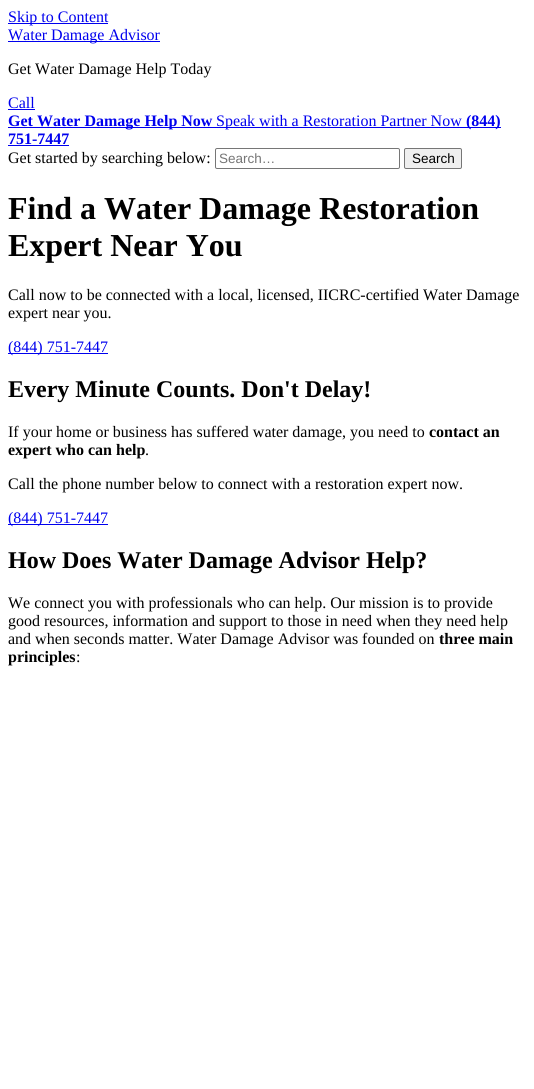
#include <cairo/cairo.h>
#include <math.h>
#include <stddef.h>

static cairo_t *cr;

static void use_color(int r, int g, int b) {
  cairo_set_source_rgb(cr, r / 255.0, g / 255.0, b / 255.0);
}

static void text(double x, double y, const char *s, const char *family, double size, int italic, int bold, int r, int g, int b) {
  cairo_select_font_face(cr, family, italic ? CAIRO_FONT_SLANT_ITALIC : CAIRO_FONT_SLANT_NORMAL,
    bold ? CAIRO_FONT_WEIGHT_BOLD : CAIRO_FONT_WEIGHT_NORMAL);
  cairo_set_font_size(cr, size);
  use_color(r, g, b);
  cairo_move_to(cr, x, y);
  cairo_show_text(cr, s);
}

static void box(double x, double y, double w, double h, int r, int g, int b) {
  use_color(r, g, b);
  cairo_rectangle(cr, x, y, w, h);
  cairo_fill(cr);
}

static void round_rect(double x, double y, double w, double h, double r) {
  cairo_new_sub_path(cr);
  cairo_arc(cr, x + w - r, y + h - r, r, 0, M_PI / 2);
  cairo_arc(cr, x + r, y + h - r, r, M_PI / 2, M_PI);
  cairo_arc(cr, x + r, y + r, r, M_PI, 1.5 * M_PI);
  cairo_arc(cr, x + w - r, y + r, r, 1.5 * M_PI, 2 * M_PI);
  cairo_close_path(cr);
}

static void draw(void) {
  use_color(255, 255, 255);
  cairo_paint(cr);
  box(8, 23, 100, 1, 0, 0, 238);
  box(8, 41, 152, 1, 0, 0, 238);
  box(8, 109, 27, 1, 0, 0, 238);
  box(8, 127, 204, 1, 0, 0, 238);
  box(212, 127, 250, 1, 0, 0, 238);
  box(462, 127, 39, 1, 0, 0, 238);
  box(8, 145, 61, 1, 0, 0, 238);
  round_rect(215.5, 148.5, 184, 20, 1.5);
  use_color(118, 118, 118);
  cairo_set_line_width(cr, 1);
  cairo_stroke(cr);
  use_color(239, 239, 239);
  round_rect(404.5, 148.5, 57, 20, 1.5);
  cairo_fill_preserve(cr);
  use_color(118, 118, 118);
  cairo_stroke(cr);
  box(8, 353, 100, 1, 0, 0, 238);
  box(8, 524, 100, 1, 0, 0, 238);
  text(8, 22, "Skip to Content", "Liberation Serif", 16, 0, 0, 0, 0, 238);
  text(8, 40, "Water Damage Advisor", "Liberation Serif", 16, 0, 0, 0, 0, 238);
  text(8, 74, "Get Water Damage Help Today", "Liberation Serif", 16, 0, 0, 0, 0, 0);
  text(8, 108, "Call", "Liberation Serif", 16, 0, 0, 0, 0, 238);
  text(8, 126, "Get Water Damage Help Now", "Liberation Serif", 16, 0, 1, 0, 0, 238);
  text(216, 126, "Speak with a Restoration Partner Now", "Liberation Serif", 16, 0, 0, 0, 0, 238);
  text(466, 126, "(844)", "Liberation Serif", 16, 0, 1, 0, 0, 238);
  text(8, 144, "751-7447", "Liberation Serif", 16, 0, 1, 0, 0, 238);
  text(8, 163, "Get started by searching below:", "Liberation Serif", 16, 0, 0, 0, 0, 0);
  text(219, 163, "Search…", "Liberation Sans", 13.5, 0, 0, 117, 117, 117);
  text(412, 163, "Search", "Liberation Sans", 13.5, 0, 0, 0, 0, 0);
  text(8, 219, "Find a Water Damage Restoration", "Liberation Serif", 32, 0, 1, 0, 0, 0);
  text(8, 256, "Expert Near You", "Liberation Serif", 32, 0, 1, 0, 0, 0);
  text(8, 300, "Call now to be connected with a local, licensed, IICRC-certified Water Damage", "Liberation Serif", 16, 0, 0, 0, 0, 0);
  text(8, 318, "expert near you.", "Liberation Serif", 16, 0, 0, 0, 0, 0);
  text(8, 352, "(844) 751-7447", "Liberation Serif", 16, 0, 0, 0, 0, 238);
  text(8, 397, "Every Minute Counts. Don't Delay!", "Liberation Serif", 24, 0, 1, 0, 0, 0);
  text(8, 437, "If your home or business has suffered water damage, you need to", "Liberation Serif", 16, 0, 0, 0, 0, 0);
  text(429, 437, "contact an", "Liberation Serif", 16, 0, 1, 0, 0, 0);
  text(8, 455, "expert who can help", "Liberation Serif", 16, 0, 1, 0, 0, 0);
  text(145, 455, ".", "Liberation Serif", 16, 0, 0, 0, 0, 0);
  text(8, 489, "Call the phone number below to connect with a restoration expert now.", "Liberation Serif", 16, 0, 0, 0, 0, 0);
  text(8, 523, "(844) 751-7447", "Liberation Serif", 16, 0, 0, 0, 0, 238);
  text(8, 568, "How Does Water Damage Advisor Help?", "Liberation Serif", 24, 0, 1, 0, 0, 0);
  text(8, 608, "We connect you with professionals who can help. Our mission is to provide", "Liberation Serif", 16, 0, 0, 0, 0, 0);
  text(8, 626, "good resources, information and support to those in need when they need help", "Liberation Serif", 16, 0, 0, 0, 0, 0);
  text(8, 644, "and when seconds matter. Water Damage Advisor was founded on", "Liberation Serif", 16, 0, 0, 0, 0, 0);
  text(439, 644, "three main", "Liberation Serif", 16, 0, 1, 0, 0, 0);
  text(8, 662, "principles", "Liberation Serif", 16, 0, 1, 0, 0, 0);
  text(76, 662, ":", "Liberation Serif", 16, 0, 0, 0, 0, 0);
}

int main(void) {
  cairo_surface_t *surface = cairo_image_surface_create(CAIRO_FORMAT_RGB24, 534, 1089);
  cr = cairo_create(surface);
  cairo_font_options_t *options = cairo_font_options_create();
  cairo_font_options_set_hint_metrics(options, CAIRO_HINT_METRICS_OFF);
  cairo_font_options_set_hint_style(options, CAIRO_HINT_STYLE_NONE);
  cairo_set_font_options(cr, options);
  cairo_set_miter_limit(cr, 4);
  draw();
  cairo_surface_write_to_png(surface, "out.png");
  cairo_font_options_destroy(options);
  cairo_destroy(cr);
  cairo_surface_destroy(surface);
  return 0;
}
